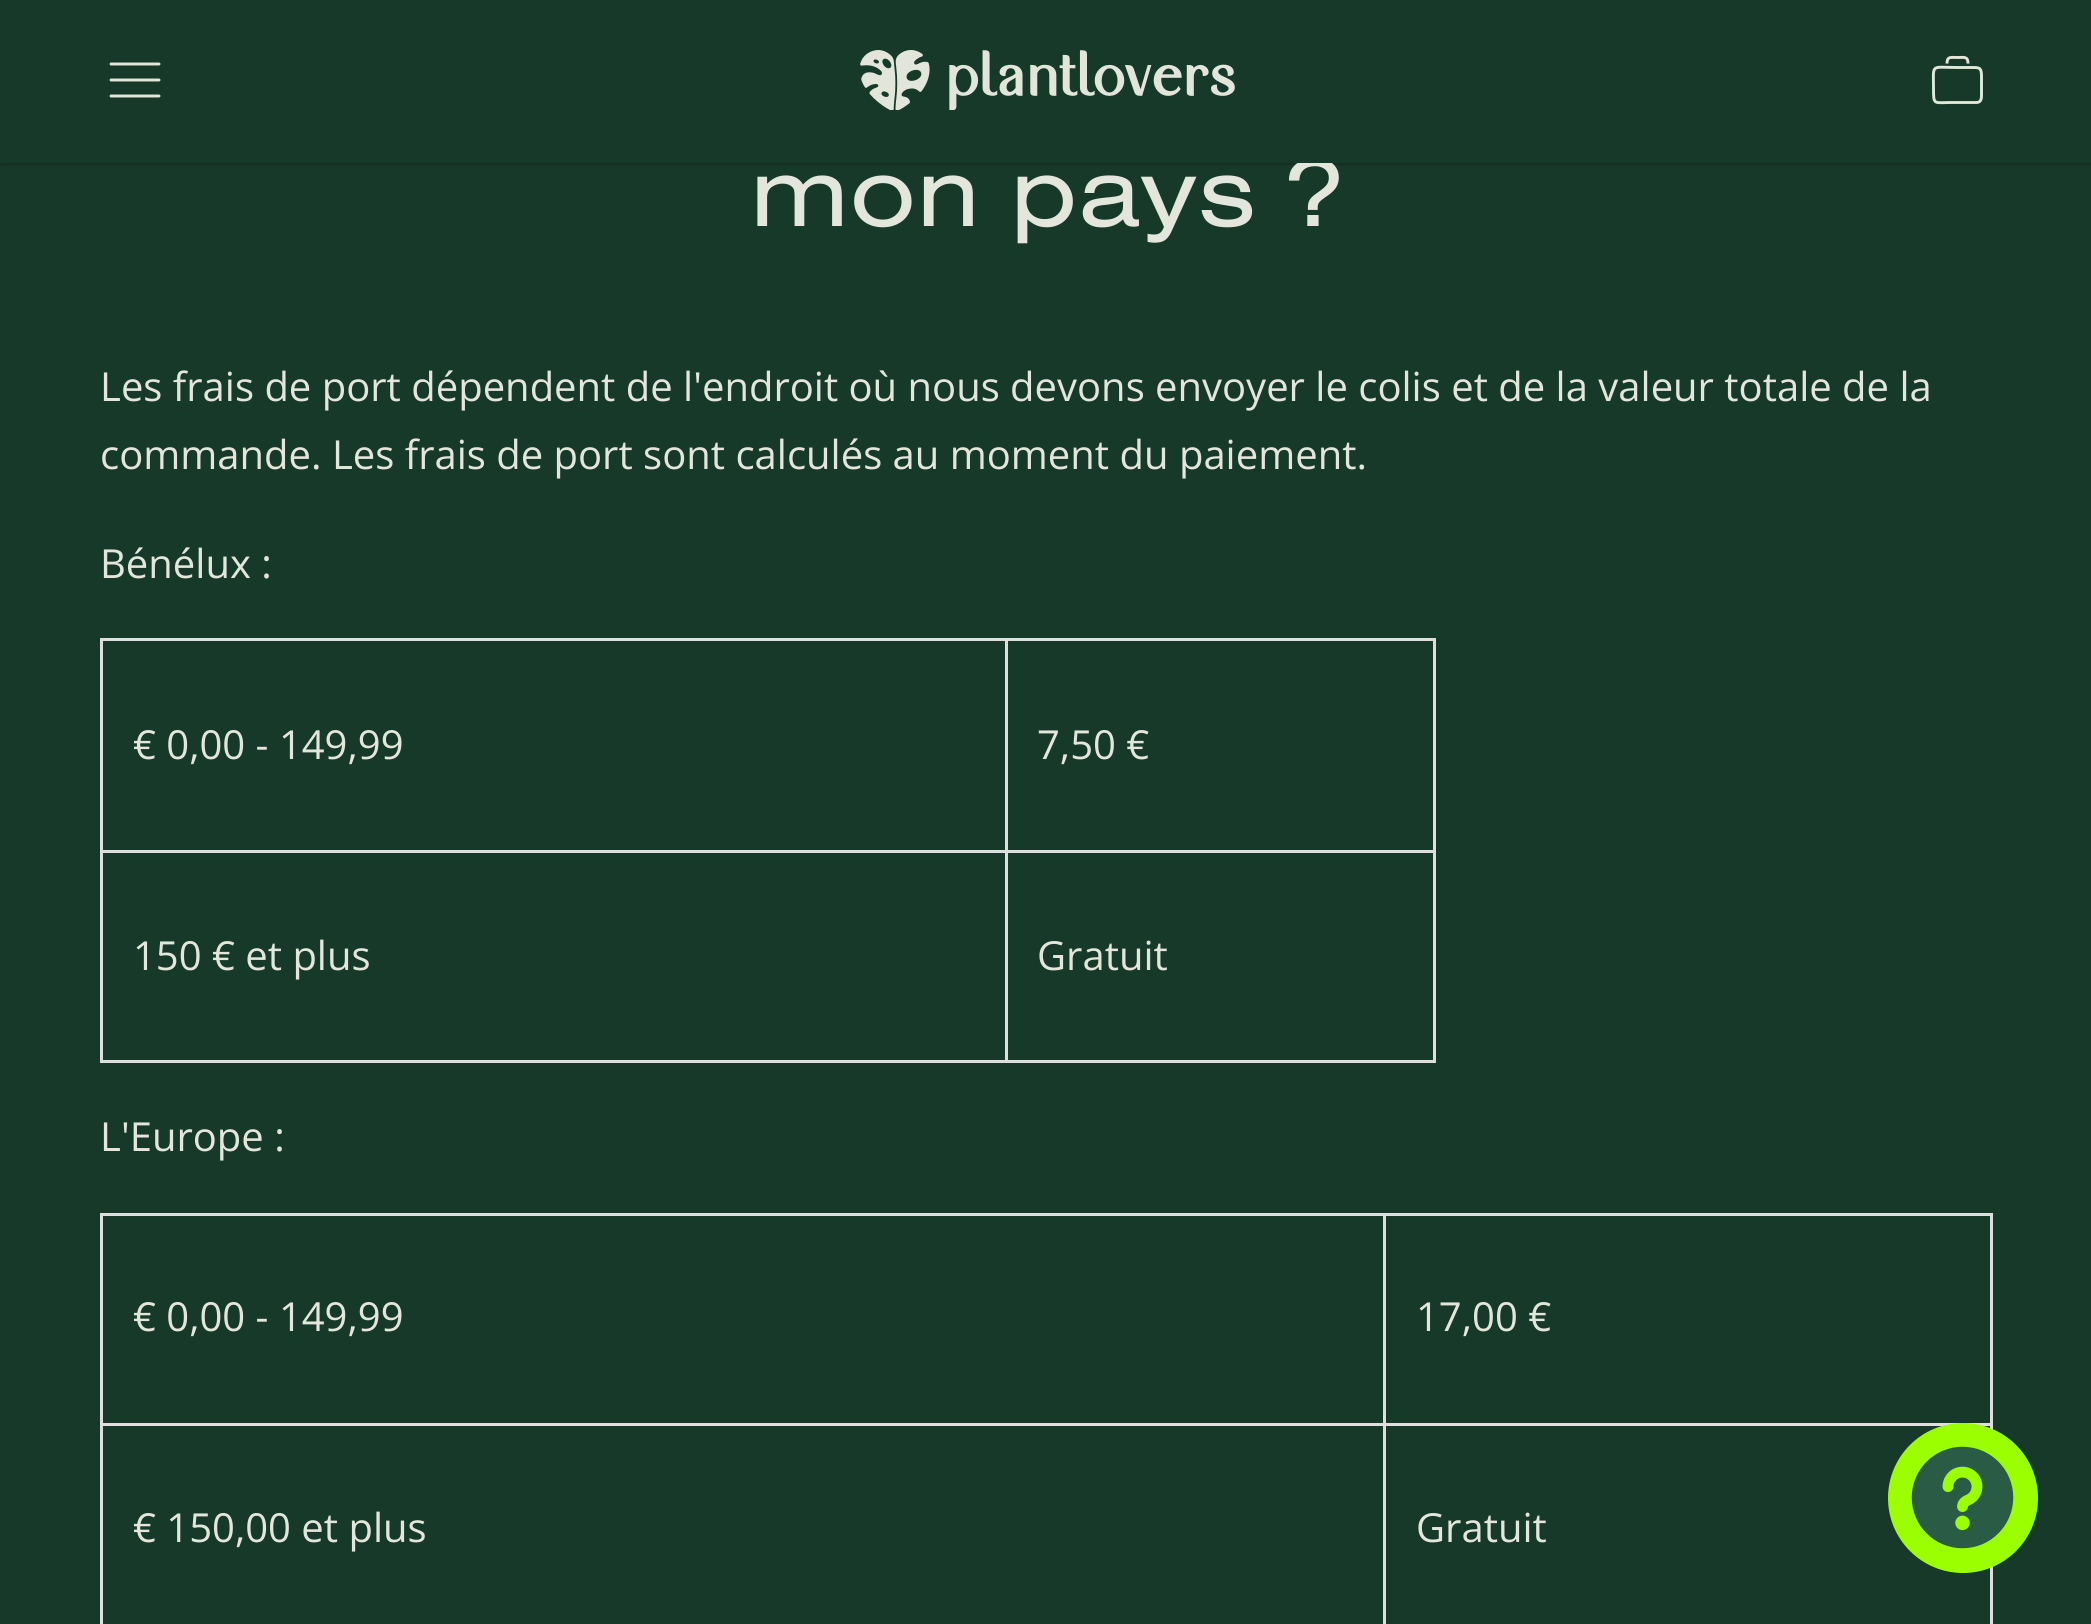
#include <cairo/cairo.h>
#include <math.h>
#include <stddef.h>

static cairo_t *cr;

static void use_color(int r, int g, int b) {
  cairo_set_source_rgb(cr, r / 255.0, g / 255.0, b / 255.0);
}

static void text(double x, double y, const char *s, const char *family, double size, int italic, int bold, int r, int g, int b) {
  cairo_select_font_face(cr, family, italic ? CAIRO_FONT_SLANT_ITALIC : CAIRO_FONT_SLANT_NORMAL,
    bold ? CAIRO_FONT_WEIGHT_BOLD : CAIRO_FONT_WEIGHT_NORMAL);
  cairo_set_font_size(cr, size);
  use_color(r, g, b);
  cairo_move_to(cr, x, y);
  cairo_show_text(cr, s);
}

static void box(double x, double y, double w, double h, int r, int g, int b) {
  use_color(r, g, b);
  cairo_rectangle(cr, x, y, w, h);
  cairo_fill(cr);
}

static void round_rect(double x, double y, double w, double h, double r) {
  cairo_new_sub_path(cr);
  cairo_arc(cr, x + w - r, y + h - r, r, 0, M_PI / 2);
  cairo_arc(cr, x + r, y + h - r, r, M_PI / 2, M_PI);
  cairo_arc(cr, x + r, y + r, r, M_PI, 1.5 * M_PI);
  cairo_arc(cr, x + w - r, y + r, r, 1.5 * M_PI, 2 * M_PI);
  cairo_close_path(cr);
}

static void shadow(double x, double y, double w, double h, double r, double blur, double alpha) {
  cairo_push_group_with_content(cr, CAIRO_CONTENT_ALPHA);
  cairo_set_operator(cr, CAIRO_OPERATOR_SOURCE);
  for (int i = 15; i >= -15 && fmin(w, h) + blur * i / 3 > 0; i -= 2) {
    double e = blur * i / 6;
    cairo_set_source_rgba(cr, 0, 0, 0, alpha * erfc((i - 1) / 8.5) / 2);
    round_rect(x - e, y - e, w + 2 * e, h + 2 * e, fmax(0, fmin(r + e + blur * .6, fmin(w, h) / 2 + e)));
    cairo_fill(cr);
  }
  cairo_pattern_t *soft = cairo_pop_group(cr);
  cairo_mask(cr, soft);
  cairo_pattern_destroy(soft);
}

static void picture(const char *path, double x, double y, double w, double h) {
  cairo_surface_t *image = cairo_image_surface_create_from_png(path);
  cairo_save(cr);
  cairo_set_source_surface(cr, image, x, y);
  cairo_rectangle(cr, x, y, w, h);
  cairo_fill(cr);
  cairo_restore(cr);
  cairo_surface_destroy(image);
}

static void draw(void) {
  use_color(23, 57, 42);
  cairo_paint(cr);
  use_color(0, 0, 0);
  shadow(0, 3, 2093, 162, 0, 1, 0.2);
  box(1005, 638, 430, 3, 222, 222, 222);
  box(1005, 850, 430, 3, 222, 222, 222);
  box(1433, 850, 3, 213, 222, 222, 222);
  box(1005, 1060, 430, 3, 222, 222, 222);
  box(1005, 850, 3, 213, 222, 222, 222);
  box(100, 850, 908, 3, 222, 222, 222);
  box(1005, 638, 3, 215, 222, 222, 222);
  box(100, 638, 908, 3, 222, 222, 222);
  box(100, 1060, 908, 3, 222, 222, 222);
  box(100, 850, 3, 213, 222, 222, 222);
  box(100, 638, 3, 215, 222, 222, 222);
  box(1433, 638, 3, 215, 222, 222, 222);
  box(1383, 1213, 610, 3, 222, 222, 222);
  box(1383, 1423, 610, 3, 222, 222, 222);
  box(1383, 1423, 3, 201, 222, 222, 222);
  box(100, 1423, 1285, 3, 222, 222, 222);
  box(1383, 1213, 3, 212, 222, 222, 222);
  box(100, 1213, 1285, 3, 222, 222, 222);
  box(100, 1423, 3, 201, 222, 222, 222);
  box(100, 1213, 3, 212, 222, 222, 222);
  box(1990, 1423, 3, 201, 222, 222, 222);
  box(1990, 1213, 3, 212, 222, 222, 222);
  use_color(156, 255, 0);
  cairo_arc(cr, 1963, 1498, 75, 0, 2 * M_PI);
  cairo_fill(cr);
  picture("img_02.png", 1911, 1446, 103, 103);
  text(750, 226, "mon pays ?", "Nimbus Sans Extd", 100, 0, 0, 227, 230, 218);
  box(0, 2, 2091, 161, 23, 57, 42);
  cairo_new_path(cr);
  cairo_move_to(cr, 1976.5, 102.5);
  cairo_line_to(cr, 1951, 102.5);
  cairo_curve_to(cr, 1934, 102.5, 1933.5, 105.5, 1933.5, 89);
  cairo_curve_to(cr, 1933.5, 63, 1930, 67.5, 1957.5, 67.5);
  cairo_line_to(cr, 1970, 67.5);
  cairo_curve_to(cr, 1979.5, 67.5, 1981.5, 67, 1981.5, 76.5);
  cairo_line_to(cr, 1981.5, 93);
  cairo_curve_to(cr, 1981.5, 97, 1982, 102.5, 1976.5, 102.5);
  cairo_close_path(cr);
  cairo_move_to(cr, 1968, 63.5);
  cairo_curve_to(cr, 1968, 56, 1964, 57.5, 1957.5, 57.5);
  cairo_curve_to(cr, 1951, 57.5, 1947, 56, 1947, 63.5);
  use_color(227, 230, 218);
  cairo_set_line_width(cr, 2.9);
  cairo_stroke(cr);
  cairo_new_path(cr);
  cairo_move_to(cr, 111, 80);
  cairo_line_to(cr, 159, 80);
  cairo_move_to(cr, 111, 64);
  cairo_line_to(cr, 159, 64);
  cairo_move_to(cr, 111, 96);
  cairo_line_to(cr, 159, 96);
  cairo_set_line_cap(cr, CAIRO_LINE_CAP_ROUND);
  cairo_set_line_join(cr, CAIRO_LINE_JOIN_ROUND);
  cairo_stroke(cr);
  picture("img_01.png", 860, 50, 375, 60);
  text(100, 401, "Les frais de port dépendent de l'endroit où nous devons envoyer le colis et de la valeur totale de la", "Open Sans", 40, 0, 0, 227, 230, 218);
  text(100, 469, "commande. Les frais de port sont calculés au moment du paiement.", "Open Sans", 40, 0, 0, 227, 230, 218);
  text(100, 578, "Bénélux :", "Open Sans", 40, 0, 0, 227, 230, 218);
  text(133, 759, "€ 0,00 - 149,99", "Open Sans", 40, 0, 0, 227, 230, 218);
  text(1037, 759, "7,50 €", "Open Sans", 40, 0, 0, 227, 230, 218);
  text(133, 970, "150 € et plus", "Open Sans", 40, 0, 0, 227, 230, 218);
  text(1037, 970, "Gratuit", "Open Sans", 40, 0, 0, 227, 230, 218);
  text(100, 1151, "L'Europe :", "Open Sans", 40, 0, 0, 227, 230, 218);
  text(133, 1331, "€ 0,00 - 149,99", "Open Sans", 40, 0, 0, 227, 230, 218);
  text(1416, 1331, "17,00 €", "Open Sans", 40, 0, 0, 227, 230, 218);
  text(133, 1542, "€ 150,00 et plus", "Open Sans", 40, 0, 0, 227, 230, 218);
  text(1416, 1542, "Gratuit", "Open Sans", 40, 0, 0, 227, 230, 218);
}

int main(void) {
  cairo_surface_t *surface = cairo_image_surface_create(CAIRO_FORMAT_RGB24, 2091, 1624);
  cr = cairo_create(surface);
  cairo_font_options_t *options = cairo_font_options_create();
  cairo_font_options_set_hint_metrics(options, CAIRO_HINT_METRICS_OFF);
  cairo_font_options_set_hint_style(options, CAIRO_HINT_STYLE_NONE);
  cairo_set_font_options(cr, options);
  cairo_set_miter_limit(cr, 4);
  draw();
  cairo_surface_write_to_png(surface, "out.png");
  cairo_font_options_destroy(options);
  cairo_destroy(cr);
  cairo_surface_destroy(surface);
  return 0;
}
